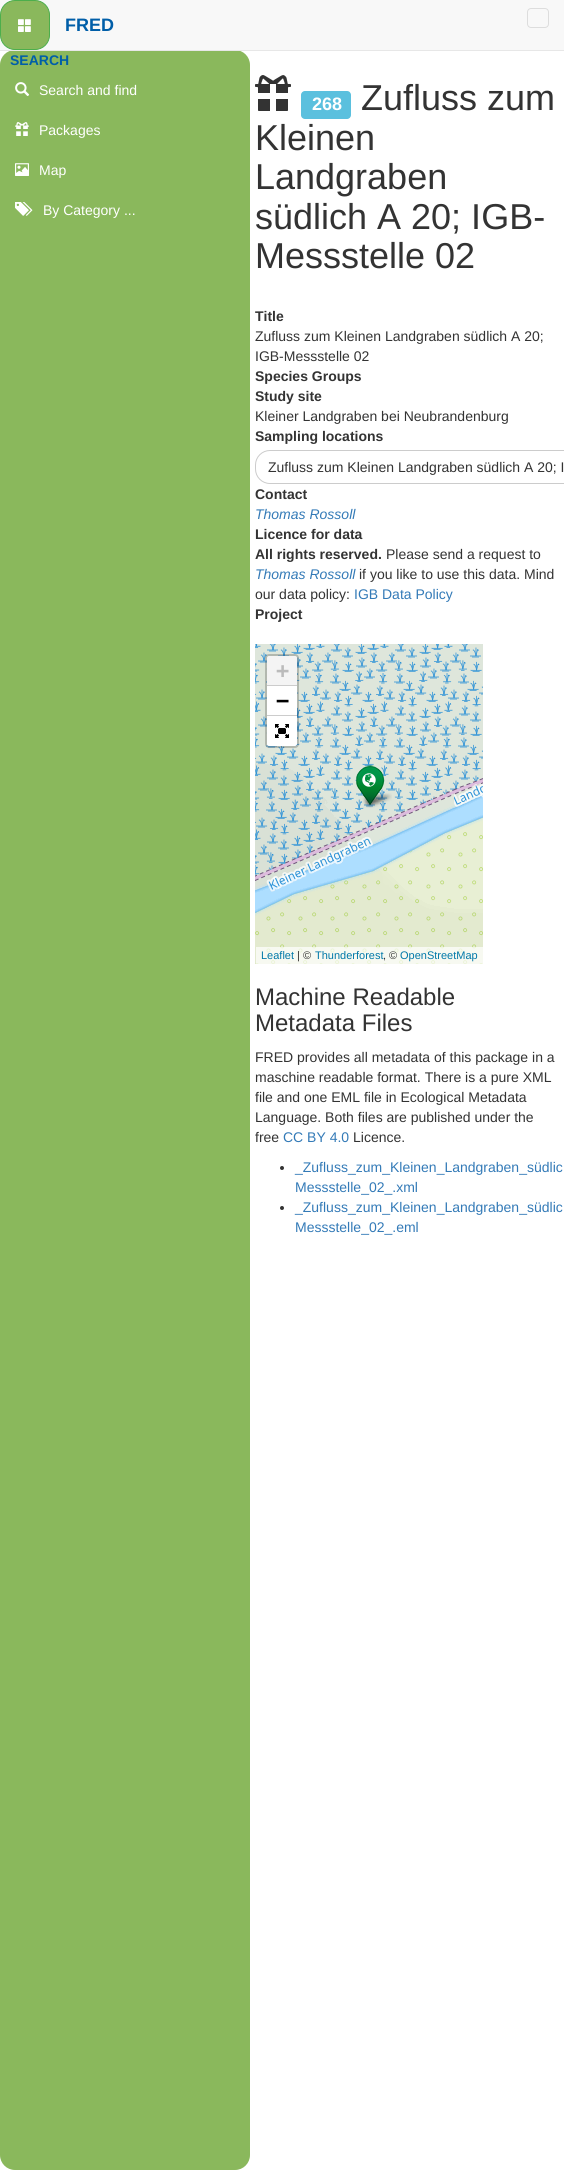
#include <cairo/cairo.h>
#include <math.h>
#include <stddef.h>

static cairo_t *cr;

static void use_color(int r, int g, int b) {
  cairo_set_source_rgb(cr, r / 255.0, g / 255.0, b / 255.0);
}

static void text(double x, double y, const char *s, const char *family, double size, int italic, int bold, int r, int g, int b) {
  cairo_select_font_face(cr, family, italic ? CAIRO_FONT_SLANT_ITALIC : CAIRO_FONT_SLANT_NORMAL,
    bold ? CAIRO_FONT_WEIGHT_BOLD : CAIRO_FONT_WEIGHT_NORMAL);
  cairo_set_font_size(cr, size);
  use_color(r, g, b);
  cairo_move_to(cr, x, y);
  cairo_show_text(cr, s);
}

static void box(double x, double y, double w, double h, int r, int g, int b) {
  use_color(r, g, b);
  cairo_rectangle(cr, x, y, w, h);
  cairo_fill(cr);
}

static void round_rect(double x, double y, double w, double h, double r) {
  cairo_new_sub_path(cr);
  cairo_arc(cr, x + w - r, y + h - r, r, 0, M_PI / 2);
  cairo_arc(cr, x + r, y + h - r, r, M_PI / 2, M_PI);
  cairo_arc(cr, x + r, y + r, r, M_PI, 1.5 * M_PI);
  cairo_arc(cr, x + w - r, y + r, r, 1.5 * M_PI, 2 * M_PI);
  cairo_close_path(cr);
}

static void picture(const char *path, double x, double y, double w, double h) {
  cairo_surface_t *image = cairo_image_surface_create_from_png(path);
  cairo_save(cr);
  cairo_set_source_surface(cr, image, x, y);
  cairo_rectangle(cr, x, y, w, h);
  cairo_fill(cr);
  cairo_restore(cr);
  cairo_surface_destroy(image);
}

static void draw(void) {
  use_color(255, 255, 255);
  cairo_paint(cr);
  box(0, 0, 564, 50, 248, 248, 248);
  use_color(138, 184, 92);
  round_rect(0, 50, 250, 2120, 15);
  cairo_fill(cr);
  box(0, 50, 564, 1, 231, 231, 231);
  use_color(138, 184, 92);
  round_rect(0.5, 0.5, 49, 49, 14.5);
  cairo_fill_preserve(cr);
  use_color(76, 174, 76);
  cairo_set_line_width(cr, 1);
  cairo_stroke(cr);
  picture("img_01.png", 18, 19, 13, 13);
  round_rect(527.5, 8.5, 21, 19, 3.5);
  use_color(221, 221, 221);
  cairo_stroke(cr);
  picture("img_02.png", 15, 82, 15, 14);
  picture("img_03.png", 15, 122, 14, 14);
  picture("img_04.png", 15, 163, 14, 13);
  picture("img_05.png", 15, 202, 18, 14);
  picture("img_06.png", 255, 75, 36, 36);
  use_color(91, 192, 222);
  round_rect(301, 91, 50, 28, 4);
  cairo_fill(cr);
  round_rect(255.5, 450.5, 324, 33, 14.5);
  use_color(204, 204, 204);
  cairo_stroke(cr);
  picture("img_07.png", 255, 644, 199, 103);
  picture("img_08.png", 454, 644, 29, 103);
  picture("img_09.png", 255, 747, 199, 217);
  picture("img_10.png", 454, 747, 29, 217);
  picture("img_13.png", 362, 793, 30, 15);
  picture("img_11.png", 356, 765, 29, 40);
  picture("img_12.png", 362, 773, 14, 14);
  round_rect(266, 655, 32, 92, 3);
  cairo_set_source_rgba(cr, 0, 0, 0, 0.2);
  cairo_set_line_width(cr, 2);
  cairo_stroke(cr);
  use_color(244, 244, 244);
  cairo_new_path(cr);
  cairo_move_to(cr, 269, 656);
  cairo_line_to(cr, 295, 656);
  cairo_curve_to(cr, 296, 656, 297, 657, 297, 658);
  cairo_line_to(cr, 297, 686);
  cairo_line_to(cr, 267, 686);
  cairo_line_to(cr, 267, 658);
  cairo_curve_to(cr, 267, 657, 268, 656, 269, 656);
  cairo_close_path(cr);
  cairo_fill(cr);
  box(267, 685, 30, 1, 204, 204, 204);
  box(267, 686, 30, 29, 255, 255, 255);
  box(267, 715, 30, 1, 204, 204, 204);
  use_color(255, 255, 255);
  cairo_new_path(cr);
  cairo_move_to(cr, 267, 716);
  cairo_line_to(cr, 297, 716);
  cairo_line_to(cr, 297, 744);
  cairo_curve_to(cr, 297, 745, 296, 746, 295, 746);
  cairo_line_to(cr, 269, 746);
  cairo_curve_to(cr, 268, 746, 267, 745, 267, 744);
  cairo_close_path(cr);
  cairo_fill(cr);
  picture("img_14.png", 275, 724, 14, 14);
  cairo_set_source_rgba(cr, 1, 1, 1, 0.7);
  cairo_rectangle(cr, 256, 947, 227, 17);
  cairo_fill(cr);
  use_color(51, 51, 51);
  cairo_arc(cr, 282, 1168, 2, 0, 2 * M_PI);
  cairo_fill(cr);
  cairo_arc(cr, 282, 1208, 2, 0, 2 * M_PI);
  cairo_fill(cr);
  text(65, 31, "FRED", "Liberation Sans", 18, 0, 1, 0, 94, 168);
  text(10, 65, "SEARCH", "Liberation Sans", 14, 0, 1, 0, 94, 168);
  text(39, 95, "Search and find", "Liberation Sans", 14, 0, 0, 255, 255, 255);
  text(39, 135, "Packages", "Liberation Sans", 14, 0, 0, 255, 255, 255);
  text(39, 175, "Map", "Liberation Sans", 14, 0, 0, 255, 255, 255);
  text(43, 215, "By Category ...", "Liberation Sans", 14, 0, 0, 255, 255, 255);
  text(312, 110, "268", "Liberation Sans", 18, 0, 1, 255, 255, 255);
  text(361, 110, "Zufluss zum", "Liberation Sans", 36, 0, 0, 51, 51, 51);
  text(255, 150, "Kleinen", "Liberation Sans", 36, 0, 0, 51, 51, 51);
  text(255, 189, "Landgraben", "Liberation Sans", 36, 0, 0, 51, 51, 51);
  text(255, 229, "südlich A 20; IGB-", "Liberation Sans", 36, 0, 0, 51, 51, 51);
  text(255, 268, "Messstelle 02", "Liberation Sans", 36, 0, 0, 51, 51, 51);
  text(255, 321, "Title", "Liberation Sans", 14, 0, 1, 51, 51, 51);
  text(255, 341, "Zufluss zum Kleinen Landgraben südlich A 20;", "Liberation Sans", 14, 0, 0, 51, 51, 51);
  text(255, 361, "IGB-Messstelle 02", "Liberation Sans", 14, 0, 0, 51, 51, 51);
  text(255, 381, "Species Groups", "Liberation Sans", 14, 0, 1, 51, 51, 51);
  text(255, 401, "Study site", "Liberation Sans", 14, 0, 1, 51, 51, 51);
  text(255, 421, "Kleiner Landgraben bei Neubrandenburg", "Liberation Sans", 14, 0, 0, 51, 51, 51);
  text(255, 441, "Sampling locations", "Liberation Sans", 14, 0, 1, 51, 51, 51);
  text(268, 472, "Zufluss zum Kleinen Landgraben südlich A 20; I", "Liberation Sans", 14, 0, 0, 51, 51, 51);
  text(255, 499, "Contact", "Liberation Sans", 14, 0, 1, 51, 51, 51);
  text(255, 519, "Thomas Rossoll", "Liberation Sans", 14, 1, 0, 51, 122, 183);
  text(255, 539, "Licence for data", "Liberation Sans", 14, 0, 1, 51, 51, 51);
  text(255, 559, "All rights reserved.", "Liberation Sans", 14, 0, 1, 51, 51, 51);
  text(386, 559, "Please send a request to", "Liberation Sans", 14, 0, 0, 51, 51, 51);
  text(255, 579, "Thomas Rossoll", "Liberation Sans", 14, 1, 0, 51, 122, 183);
  text(359, 579, "if you like to use this data. Mind", "Liberation Sans", 14, 0, 0, 51, 51, 51);
  text(255, 599, "our data policy:", "Liberation Sans", 14, 0, 0, 51, 51, 51);
  text(354, 599, "IGB Data Policy", "Liberation Sans", 14, 0, 0, 51, 122, 183);
  text(255, 619, "Project", "Liberation Sans", 14, 0, 1, 51, 51, 51);
  text(276, 678, "+", "DejaVu Sans Mono", 22, 0, 1, 187, 187, 187);
  text(276, 708, "−", "DejaVu Sans Mono", 22, 0, 1, 0, 0, 0);
  text(261, 959, "Leaflet", "Liberation Sans", 11, 0, 0, 0, 120, 168);
  text(297, 959, "| ©", "Liberation Sans", 11, 0, 0, 51, 51, 51);
  text(315, 959, "Thunderforest", "Liberation Sans", 11, 0, 0, 0, 120, 168);
  text(383, 959, ", ©", "Liberation Sans", 11, 0, 0, 51, 51, 51);
  text(400, 959, "OpenStreetMap", "Liberation Sans", 11, 0, 0, 0, 120, 168);
  text(255, 1005, "Machine Readable", "Liberation Sans", 24, 0, 0, 51, 51, 51);
  text(255, 1031, "Metadata Files", "Liberation Sans", 24, 0, 0, 51, 51, 51);
  text(255, 1062, "FRED provides all metadata of this package in a", "Liberation Sans", 14, 0, 0, 51, 51, 51);
  text(255, 1082, "maschine readable format. There is a pure XML", "Liberation Sans", 14, 0, 0, 51, 51, 51);
  text(255, 1102, "file and one EML file in Ecological Metadata", "Liberation Sans", 14, 0, 0, 51, 51, 51);
  text(255, 1122, "Language. Both files are published under the", "Liberation Sans", 14, 0, 0, 51, 51, 51);
  text(255, 1142, "free", "Liberation Sans", 14, 0, 0, 51, 51, 51);
  text(283, 1142, "CC BY 4.0", "Liberation Sans", 14, 0, 0, 51, 122, 183);
  text(353, 1142, "Licence.", "Liberation Sans", 14, 0, 0, 51, 51, 51);
  text(295, 1172, "_Zufluss_zum_Kleinen_Landgraben_südlic", "Liberation Sans", 14, 0, 0, 51, 122, 183);
  text(295, 1192, "Messstelle_02_.xml", "Liberation Sans", 14, 0, 0, 51, 122, 183);
  text(295, 1212, "_Zufluss_zum_Kleinen_Landgraben_südlic", "Liberation Sans", 14, 0, 0, 51, 122, 183);
  text(295, 1232, "Messstelle_02_.eml", "Liberation Sans", 14, 0, 0, 51, 122, 183);
}

int main(void) {
  cairo_surface_t *surface = cairo_image_surface_create(CAIRO_FORMAT_RGB24, 564, 2170);
  cr = cairo_create(surface);
  cairo_font_options_t *options = cairo_font_options_create();
  cairo_font_options_set_hint_metrics(options, CAIRO_HINT_METRICS_OFF);
  cairo_font_options_set_hint_style(options, CAIRO_HINT_STYLE_NONE);
  cairo_set_font_options(cr, options);
  cairo_set_miter_limit(cr, 4);
  draw();
  cairo_surface_write_to_png(surface, "out.png");
  cairo_font_options_destroy(options);
  cairo_destroy(cr);
  cairo_surface_destroy(surface);
  return 0;
}
